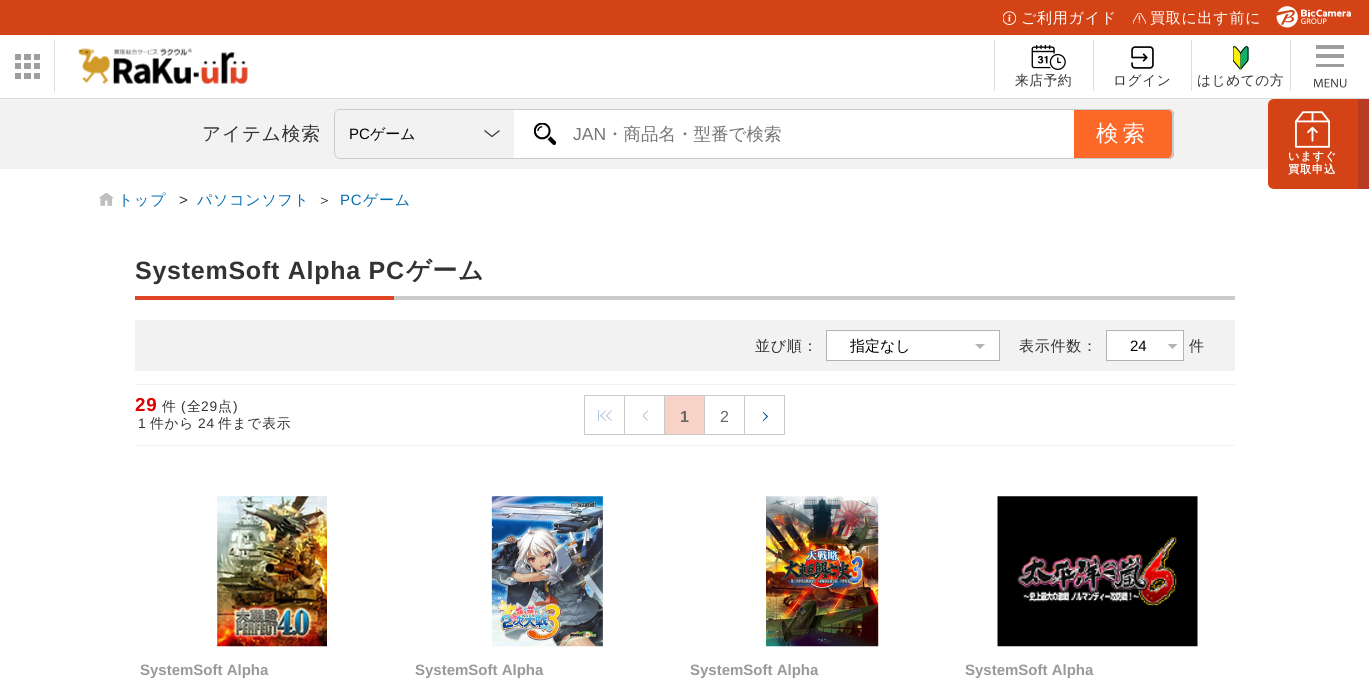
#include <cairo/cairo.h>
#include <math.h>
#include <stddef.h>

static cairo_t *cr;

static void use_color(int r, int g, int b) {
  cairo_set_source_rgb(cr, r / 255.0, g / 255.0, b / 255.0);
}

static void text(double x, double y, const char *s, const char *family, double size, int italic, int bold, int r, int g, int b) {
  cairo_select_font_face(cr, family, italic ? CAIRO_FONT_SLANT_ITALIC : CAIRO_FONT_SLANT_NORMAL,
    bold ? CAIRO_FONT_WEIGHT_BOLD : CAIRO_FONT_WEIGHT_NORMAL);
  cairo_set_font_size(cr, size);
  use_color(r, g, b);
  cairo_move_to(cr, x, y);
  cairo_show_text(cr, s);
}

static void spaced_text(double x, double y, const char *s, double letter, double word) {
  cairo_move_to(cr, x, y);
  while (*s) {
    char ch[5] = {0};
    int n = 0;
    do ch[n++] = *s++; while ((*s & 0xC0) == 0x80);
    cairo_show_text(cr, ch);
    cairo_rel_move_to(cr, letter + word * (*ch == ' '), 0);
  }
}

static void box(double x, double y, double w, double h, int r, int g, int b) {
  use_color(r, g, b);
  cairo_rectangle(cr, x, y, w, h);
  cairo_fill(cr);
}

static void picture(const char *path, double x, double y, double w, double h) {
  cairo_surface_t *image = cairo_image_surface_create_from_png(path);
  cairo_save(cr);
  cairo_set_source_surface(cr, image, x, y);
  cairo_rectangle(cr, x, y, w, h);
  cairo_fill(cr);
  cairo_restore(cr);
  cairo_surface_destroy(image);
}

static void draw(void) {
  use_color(255, 255, 255);
  cairo_paint(cr);
  box(0, 0, 1369, 35, 212, 67, 22);
  picture("img_01.png", 1003, 11, 13, 14);
  picture("img_02.png", 1133, 13, 13, 11);
  picture("img_03.png", 1276, 6, 75, 22);
  box(0, 98, 1369, 1, 221, 221, 221);
  cairo_new_path(cr);
  cairo_move_to(cr, 55, 39);
  cairo_line_to(cr, 55, 92);
  cairo_line_to(cr, 54, 92);
  cairo_line_to(cr, 54, 40);
  cairo_close_path(cr);
  cairo_fill(cr);
  picture("img_04.png", 15, 54, 25, 25);
  picture("img_05.png", 78, 48, 170, 36);
  box(994, 40, 1, 51, 221, 221, 221);
  picture("img_06.png", 1031, 45, 35, 25);
  box(1093, 40, 1, 51, 221, 221, 221);
  picture("img_07.png", 1131, 46, 23, 23);
  box(1191, 40, 1, 51, 221, 221, 221);
  picture("img_08.png", 1233, 46, 16, 24);
  box(1290, 40, 1, 51, 221, 221, 221);
  picture("img_09.png", 1314, 45, 33, 43);
  box(0, 99, 1274, 70, 242, 242, 242);
  cairo_new_path(cr);
  cairo_move_to(cr, 499.5, 130.5);
  cairo_line_to(cr, 492, 136.5);
  cairo_line_to(cr, 484.5, 130.5);
  use_color(51, 51, 51);
  cairo_set_line_width(cr, 1.2);
  cairo_stroke(cr);
  use_color(204, 204, 204);
  cairo_set_fill_rule(cr, CAIRO_FILL_RULE_EVEN_ODD);
  cairo_new_path(cr);
  cairo_move_to(cr, 340, 109);
  cairo_line_to(cr, 514, 109);
  cairo_line_to(cr, 514, 159);
  cairo_line_to(cr, 340, 159);
  cairo_curve_to(cr, 337, 159, 334, 156, 334, 152);
  cairo_line_to(cr, 334, 115);
  cairo_curve_to(cr, 334, 112, 337, 109, 340, 109);
  cairo_close_path(cr);
  cairo_move_to(cr, 340, 110);
  cairo_line_to(cr, 514, 110);
  cairo_line_to(cr, 514, 158);
  cairo_line_to(cr, 340, 158);
  cairo_curve_to(cr, 337, 158, 335, 155, 335, 152);
  cairo_line_to(cr, 335, 115);
  cairo_curve_to(cr, 335, 112, 337, 110, 340, 110);
  cairo_close_path(cr);
  cairo_fill(cr);
  box(514, 110, 560, 48, 255, 255, 255);
  picture("img_10.png", 534, 123, 22, 22);
  box(514, 109, 560, 1, 204, 204, 204);
  box(514, 158, 560, 1, 204, 204, 204);
  use_color(252, 104, 39);
  cairo_new_path(cr);
  cairo_move_to(cr, 1074, 109);
  cairo_line_to(cr, 1168, 109);
  cairo_curve_to(cr, 1171.5, 109, 1174, 111.5, 1174, 115);
  cairo_line_to(cr, 1174, 153);
  cairo_curve_to(cr, 1174, 156.5, 1171.5, 159, 1168, 159);
  cairo_line_to(cr, 1074, 159);
  cairo_close_path(cr);
  cairo_fill(cr);
  use_color(204, 204, 204);
  cairo_new_path(cr);
  cairo_move_to(cr, 1074, 109);
  cairo_line_to(cr, 1168, 109);
  cairo_curve_to(cr, 1171, 109, 1174, 112, 1174, 115);
  cairo_line_to(cr, 1174, 152);
  cairo_curve_to(cr, 1174, 156, 1171, 159, 1168, 159);
  cairo_line_to(cr, 1074, 159);
  cairo_close_path(cr);
  cairo_move_to(cr, 1074, 110);
  cairo_line_to(cr, 1168, 110);
  cairo_curve_to(cr, 1170, 110, 1172, 112, 1172, 115);
  cairo_line_to(cr, 1172, 152);
  cairo_curve_to(cr, 1172, 155, 1170, 158, 1168, 158);
  cairo_line_to(cr, 1074, 158);
  cairo_close_path(cr);
  cairo_fill(cr);
  use_color(212, 67, 22);
  cairo_new_path(cr);
  cairo_move_to(cr, 1274, 99);
  cairo_line_to(cr, 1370, 99);
  cairo_line_to(cr, 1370, 189);
  cairo_line_to(cr, 1274, 189);
  cairo_curve_to(cr, 1270.5, 189, 1268, 186.5, 1268, 183);
  cairo_line_to(cr, 1268, 105);
  cairo_curve_to(cr, 1268, 101.5, 1270.5, 99, 1274, 99);
  cairo_close_path(cr);
  cairo_fill(cr);
  box(1358, 99, 11, 90, 183, 60, 35);
  picture("img_11.png", 1295, 111, 35, 37);
  picture("img_12.png", 99, 193, 15, 13);
  box(394, 296, 841, 4, 204, 204, 204);
  box(135, 296, 259, 4, 223, 69, 37);
  box(135, 320, 1100, 51, 242, 242, 242);
  box(827, 331, 172, 29, 255, 255, 255);
  use_color(179, 179, 179);
  cairo_set_fill_rule(cr, CAIRO_FILL_RULE_WINDING);
  cairo_new_path(cr);
  cairo_move_to(cr, 980, 349);
  cairo_line_to(cr, 975, 344);
  cairo_line_to(cr, 985, 344);
  cairo_close_path(cr);
  cairo_fill(cr);
  cairo_rectangle(cr, 826.5, 330.5, 173, 30);
  cairo_set_line_width(cr, 1);
  cairo_stroke(cr);
  box(1107, 331, 76, 29, 255, 255, 255);
  use_color(179, 179, 179);
  cairo_new_path(cr);
  cairo_move_to(cr, 1172.5, 349);
  cairo_line_to(cr, 1167.5, 344);
  cairo_line_to(cr, 1177.5, 344);
  cairo_close_path(cr);
  cairo_fill(cr);
  cairo_rectangle(cr, 1106.5, 330.5, 77, 30);
  cairo_stroke(cr);
  box(135, 384, 1100, 1, 242, 242, 242);
  box(135, 445, 1100, 1, 242, 242, 242);
  box(584, 395, 200, 1, 201, 201, 201);
  box(584, 434, 200, 1, 201, 201, 201);
  box(584, 395, 1, 40, 201, 201, 201);
  picture("img_13.png", 598, 410, 14, 11);
  box(624, 395, 1, 40, 201, 201, 201);
  picture("img_14.png", 643, 410, 5, 11);
  box(665, 396, 39, 38, 249, 210, 199);
  box(664, 395, 1, 40, 201, 201, 201);
  box(704, 395, 1, 40, 201, 201, 201);
  box(744, 395, 1, 40, 201, 201, 201);
  picture("img_15.png", 763, 411, 5, 11);
  box(784, 395, 1, 40, 201, 201, 201);
  picture("img_16.png", 217, 496, 110, 151);
  picture("img_17.png", 491, 496, 112, 151);
  picture("img_18.png", 762, 496, 120, 151);
  picture("img_19.png", 997, 496, 201, 151);
  cairo_select_font_face(cr, "WenQuanYi Zen Hei Medium", CAIRO_FONT_SLANT_NORMAL, CAIRO_FONT_WEIGHT_NORMAL);
  cairo_set_font_size(cr, 15);
  use_color(255, 255, 255);
  spaced_text(1021, 23, "ご利用ガイド", 0.75, 0);
  spaced_text(1150, 23, "買取に出す前に", 0.75, 0);
  cairo_set_font_size(cr, 13.75);
  use_color(51, 51, 51);
  spaced_text(1015, 85, "来店予約", 0.5, 0);
  spaced_text(1113, 85, "ログイン", 0.5, 0);
  spaced_text(1197, 85, "はじめての方", 0.5, 0);
  cairo_set_font_size(cr, 18.75);
  spaced_text(202, 140, "アイテム検索", 0.75, 0);
  text(349, 139, "PC", "Liberation Sans", 15, 0, 0, 0, 0, 0);
  text(370, 139, "ゲーム", "WenQuanYi Zen Hei Medium", 15, 0, 0, 0, 0, 0);
  text(573, 140, "JAN", "Liberation Sans", 17.5, 0, 0, 117, 117, 117);
  text(606, 140, "・商品名・型番で検索", "WenQuanYi Zen Hei Medium", 17.5, 0, 0, 117, 117, 117);
  cairo_set_font_size(cr, 22.5);
  use_color(255, 255, 255);
  spaced_text(1096, 141, "検索", 4, 0);
  cairo_select_font_face(cr, "WenQuanYi Zen Hei", CAIRO_FONT_SLANT_NORMAL, CAIRO_FONT_WEIGHT_BOLD);
  cairo_set_font_size(cr, 11.25);
  spaced_text(1288, 160, "いますぐ", 0.75, 0);
  spaced_text(1288, 173, "買取申込", 0.75, 0);
  cairo_select_font_face(cr, "WenQuanYi Zen Hei Medium", CAIRO_FONT_SLANT_NORMAL, CAIRO_FONT_WEIGHT_NORMAL);
  cairo_set_font_size(cr, 15);
  use_color(6, 110, 179);
  spaced_text(118, 205, "トップ", 0.75, 0);
  cairo_select_font_face(cr, "Liberation Sans", CAIRO_FONT_SLANT_NORMAL, CAIRO_FONT_WEIGHT_NORMAL);
  use_color(51, 51, 51);
  spaced_text(179, 205, ">", 0.75, 0);
  cairo_select_font_face(cr, "WenQuanYi Zen Hei Medium", CAIRO_FONT_SLANT_NORMAL, CAIRO_FONT_WEIGHT_NORMAL);
  use_color(6, 110, 179);
  spaced_text(197, 205, "パソコンソフト", 0.75, 0);
  use_color(51, 51, 51);
  spaced_text(317, 205, "＞", 0.75, 0);
  cairo_select_font_face(cr, "Liberation Sans", CAIRO_FONT_SLANT_NORMAL, CAIRO_FONT_WEIGHT_NORMAL);
  use_color(6, 110, 179);
  spaced_text(340, 205, "PC", 0.75, 0);
  cairo_select_font_face(cr, "WenQuanYi Zen Hei Medium", CAIRO_FONT_SLANT_NORMAL, CAIRO_FONT_WEIGHT_NORMAL);
  spaced_text(363, 205, "ゲーム", 0.75, 0);
  cairo_select_font_face(cr, "Liberation Sans", CAIRO_FONT_SLANT_NORMAL, CAIRO_FONT_WEIGHT_BOLD);
  cairo_set_font_size(cr, 25);
  use_color(51, 51, 51);
  spaced_text(135, 279, "SystemSoft Alpha PC", 0.75, 0);
  cairo_select_font_face(cr, "WenQuanYi Zen Hei", CAIRO_FONT_SLANT_NORMAL, CAIRO_FONT_WEIGHT_BOLD);
  spaced_text(406, 279, "ゲーム", 0.75, 0);
  cairo_select_font_face(cr, "WenQuanYi Zen Hei Medium", CAIRO_FONT_SLANT_NORMAL, CAIRO_FONT_WEIGHT_NORMAL);
  cairo_set_font_size(cr, 15);
  spaced_text(755, 351, "並び順：", 0.75, 0);
  text(850, 351, "指定なし", "WenQuanYi Zen Hei Medium", 15, 0, 0, 0, 0, 0);
  use_color(51, 51, 51);
  spaced_text(1019, 351, "表示件数：", 0.75, 0);
  text(1130, 351, "24", "Liberation Sans", 15, 0, 0, 0, 0, 0);
  cairo_select_font_face(cr, "WenQuanYi Zen Hei Medium", CAIRO_FONT_SLANT_NORMAL, CAIRO_FONT_WEIGHT_NORMAL);
  use_color(51, 51, 51);
  spaced_text(1189, 351, "件", 0.75, 0);
  cairo_select_font_face(cr, "Liberation Sans", CAIRO_FONT_SLANT_NORMAL, CAIRO_FONT_WEIGHT_BOLD);
  cairo_set_font_size(cr, 18.75);
  use_color(221, 0, 0);
  spaced_text(135, 411, "29", 0.75, 0);
  cairo_select_font_face(cr, "WenQuanYi Zen Hei Medium", CAIRO_FONT_SLANT_NORMAL, CAIRO_FONT_WEIGHT_NORMAL);
  cairo_set_font_size(cr, 13.75);
  use_color(51, 51, 51);
  spaced_text(162, 411, "件", 0.75, 0);
  cairo_select_font_face(cr, "Liberation Sans", CAIRO_FONT_SLANT_NORMAL, CAIRO_FONT_WEIGHT_NORMAL);
  spaced_text(181, 411, "(", 0.75, 0);
  cairo_select_font_face(cr, "WenQuanYi Zen Hei Medium", CAIRO_FONT_SLANT_NORMAL, CAIRO_FONT_WEIGHT_NORMAL);
  spaced_text(187, 411, "全", 0.75, 0);
  cairo_select_font_face(cr, "Liberation Sans", CAIRO_FONT_SLANT_NORMAL, CAIRO_FONT_WEIGHT_NORMAL);
  spaced_text(201, 411, "29", 0.75, 0);
  cairo_select_font_face(cr, "WenQuanYi Zen Hei Medium", CAIRO_FONT_SLANT_NORMAL, CAIRO_FONT_WEIGHT_NORMAL);
  spaced_text(218, 411, "点", 0.75, 0);
  cairo_select_font_face(cr, "Liberation Sans", CAIRO_FONT_SLANT_NORMAL, CAIRO_FONT_WEIGHT_NORMAL);
  spaced_text(233, 411, ")", 0.75, 0);
  spaced_text(138, 428, "1", 0.75, 0);
  cairo_select_font_face(cr, "WenQuanYi Zen Hei Medium", CAIRO_FONT_SLANT_NORMAL, CAIRO_FONT_WEIGHT_NORMAL);
  spaced_text(150, 428, "件から", 0.75, 0);
  cairo_select_font_face(cr, "Liberation Sans", CAIRO_FONT_SLANT_NORMAL, CAIRO_FONT_WEIGHT_NORMAL);
  spaced_text(198, 428, "24", 0.75, 0);
  cairo_select_font_face(cr, "WenQuanYi Zen Hei Medium", CAIRO_FONT_SLANT_NORMAL, CAIRO_FONT_WEIGHT_NORMAL);
  spaced_text(218, 428, "件まで表示", 0.75, 0);
  cairo_select_font_face(cr, "Liberation Sans", CAIRO_FONT_SLANT_NORMAL, CAIRO_FONT_WEIGHT_BOLD);
  cairo_set_font_size(cr, 16);
  use_color(102, 102, 102);
  spaced_text(680, 422, "1", 0.75, 0);
  cairo_select_font_face(cr, "Liberation Sans", CAIRO_FONT_SLANT_NORMAL, CAIRO_FONT_WEIGHT_NORMAL);
  spaced_text(720, 422, "2", 0.75, 0);
  text(140, 675, "SystemSoft Alpha", "Liberation Sans", 15, 0, 1, 153, 153, 153);
  text(415, 675, "SystemSoft Alpha", "Liberation Sans", 15, 0, 1, 153, 153, 153);
  text(690, 675, "SystemSoft Alpha", "Liberation Sans", 15, 0, 1, 153, 153, 153);
  text(965, 675, "SystemSoft Alpha", "Liberation Sans", 15, 0, 1, 153, 153, 153);
}

int main(void) {
  cairo_surface_t *surface = cairo_image_surface_create(CAIRO_FORMAT_RGB24, 1369, 684);
  cr = cairo_create(surface);
  cairo_font_options_t *options = cairo_font_options_create();
  cairo_font_options_set_hint_metrics(options, CAIRO_HINT_METRICS_OFF);
  cairo_font_options_set_hint_style(options, CAIRO_HINT_STYLE_NONE);
  cairo_set_font_options(cr, options);
  cairo_set_miter_limit(cr, 4);
  draw();
  cairo_surface_write_to_png(surface, "out.png");
  cairo_font_options_destroy(options);
  cairo_destroy(cr);
  cairo_surface_destroy(surface);
  return 0;
}
